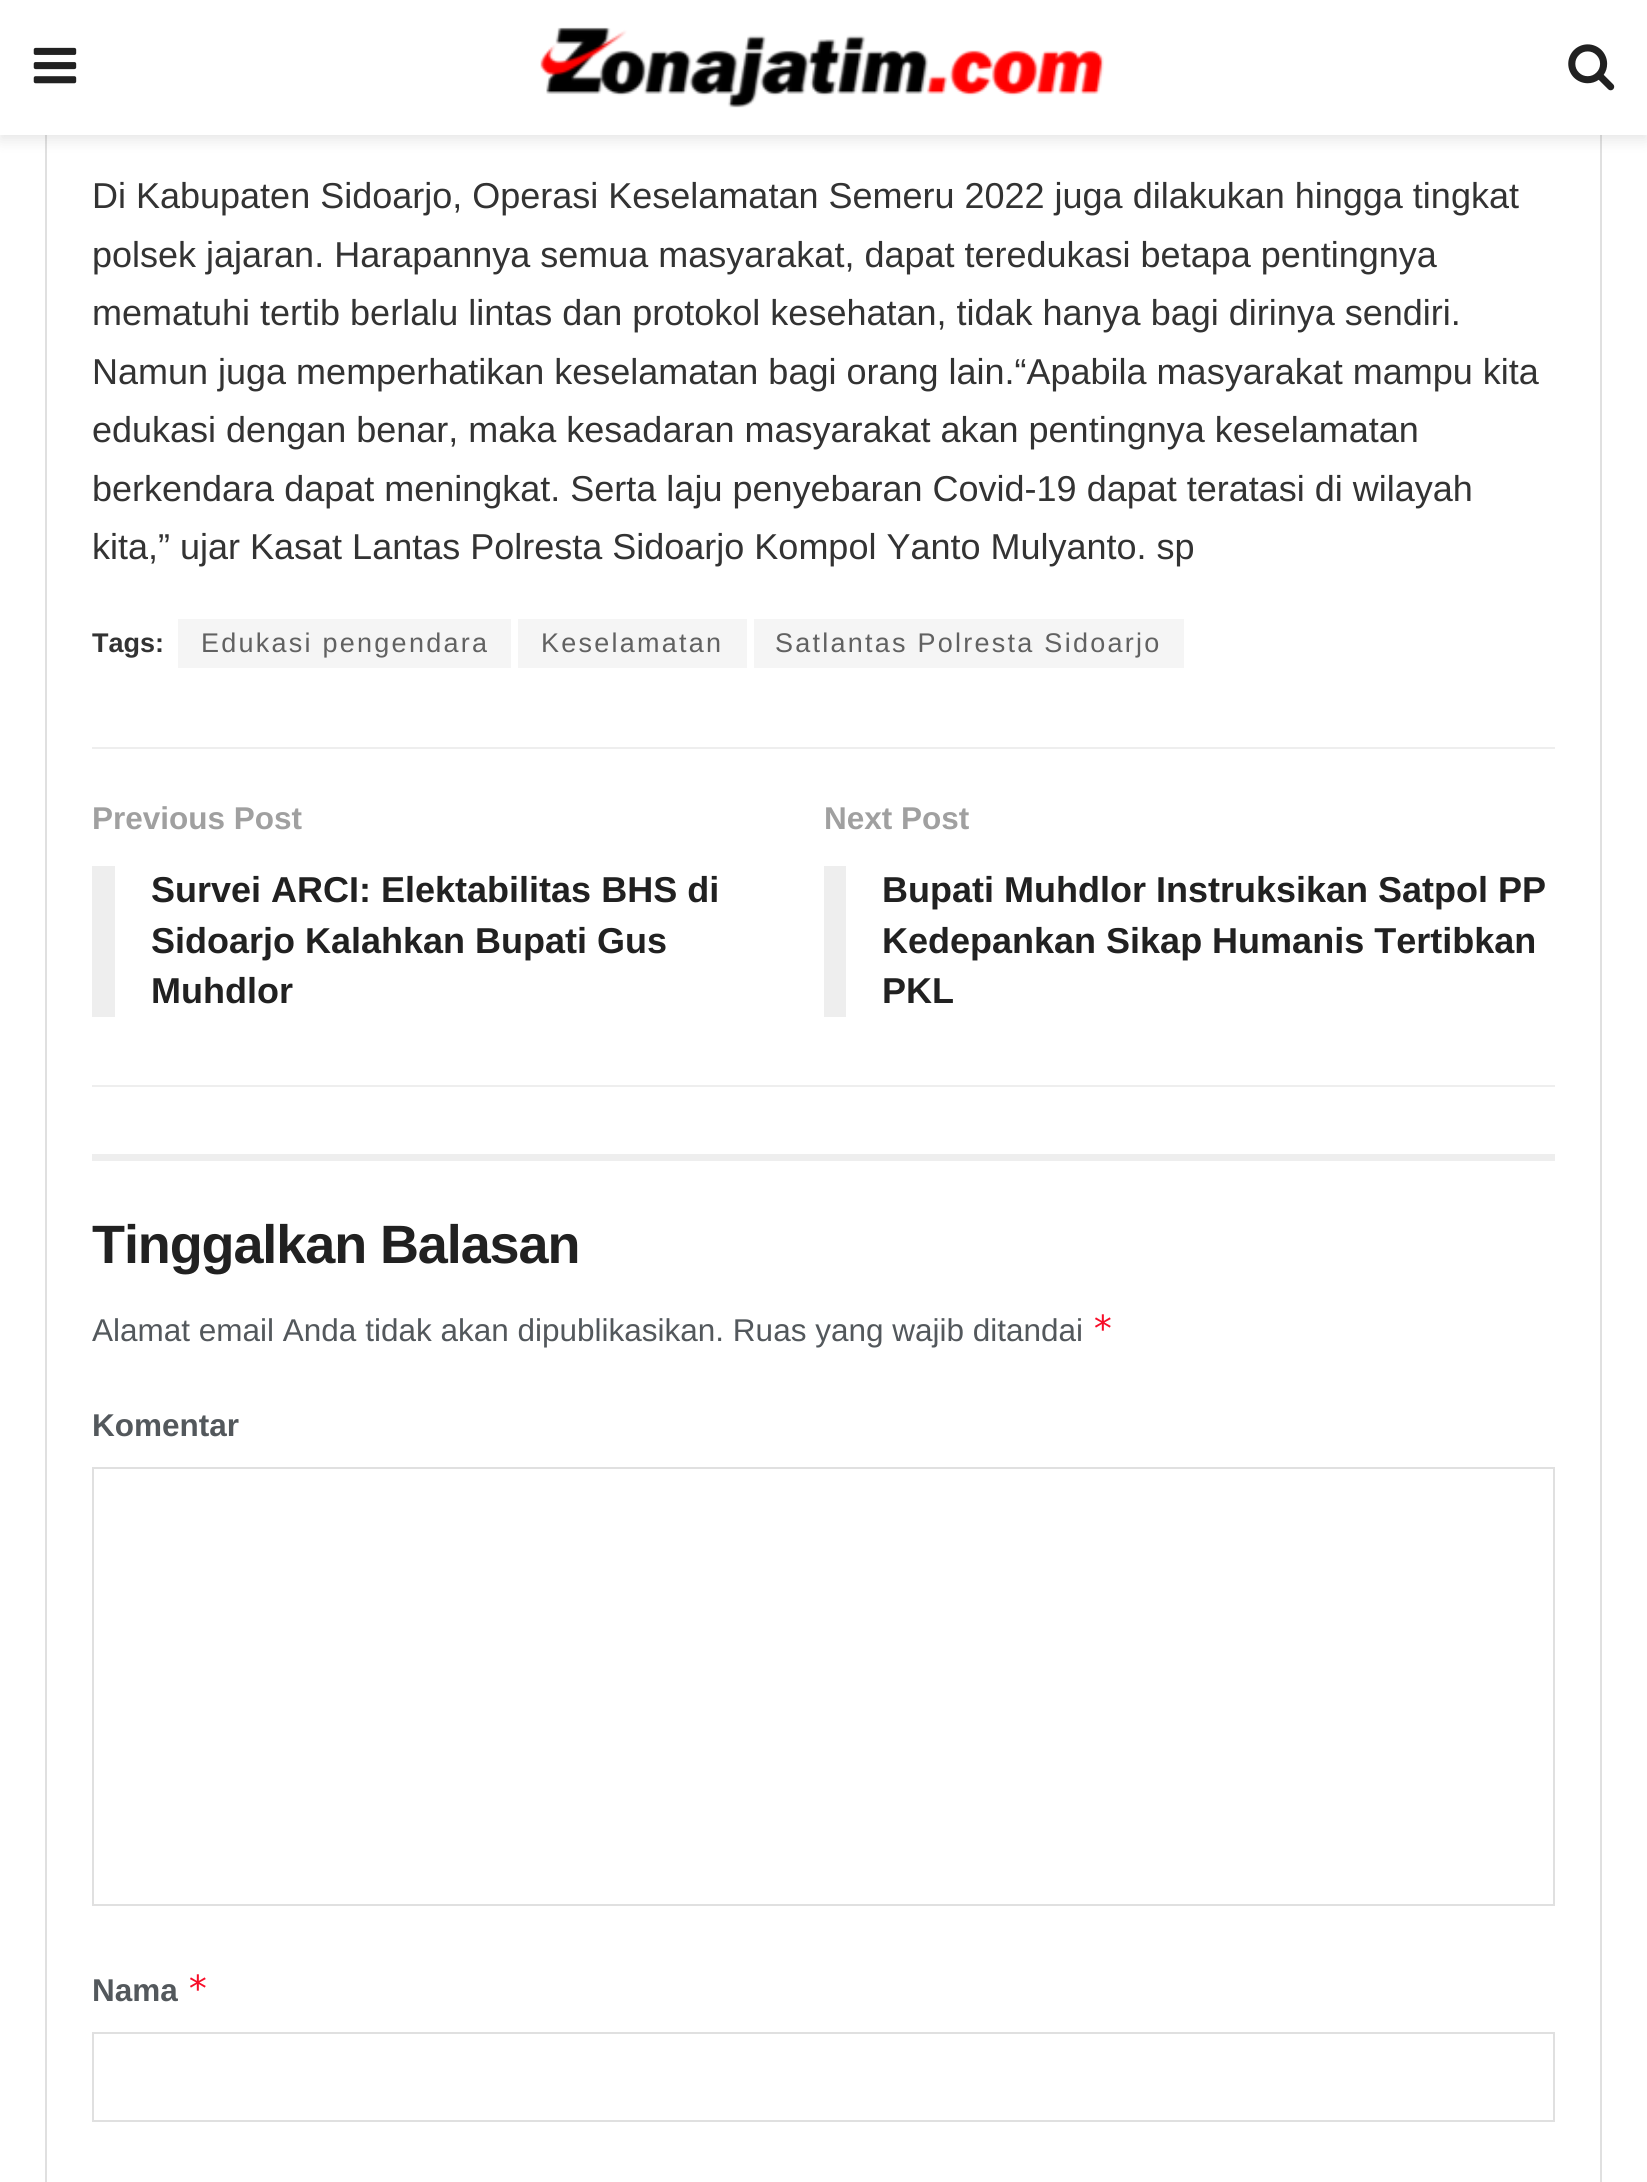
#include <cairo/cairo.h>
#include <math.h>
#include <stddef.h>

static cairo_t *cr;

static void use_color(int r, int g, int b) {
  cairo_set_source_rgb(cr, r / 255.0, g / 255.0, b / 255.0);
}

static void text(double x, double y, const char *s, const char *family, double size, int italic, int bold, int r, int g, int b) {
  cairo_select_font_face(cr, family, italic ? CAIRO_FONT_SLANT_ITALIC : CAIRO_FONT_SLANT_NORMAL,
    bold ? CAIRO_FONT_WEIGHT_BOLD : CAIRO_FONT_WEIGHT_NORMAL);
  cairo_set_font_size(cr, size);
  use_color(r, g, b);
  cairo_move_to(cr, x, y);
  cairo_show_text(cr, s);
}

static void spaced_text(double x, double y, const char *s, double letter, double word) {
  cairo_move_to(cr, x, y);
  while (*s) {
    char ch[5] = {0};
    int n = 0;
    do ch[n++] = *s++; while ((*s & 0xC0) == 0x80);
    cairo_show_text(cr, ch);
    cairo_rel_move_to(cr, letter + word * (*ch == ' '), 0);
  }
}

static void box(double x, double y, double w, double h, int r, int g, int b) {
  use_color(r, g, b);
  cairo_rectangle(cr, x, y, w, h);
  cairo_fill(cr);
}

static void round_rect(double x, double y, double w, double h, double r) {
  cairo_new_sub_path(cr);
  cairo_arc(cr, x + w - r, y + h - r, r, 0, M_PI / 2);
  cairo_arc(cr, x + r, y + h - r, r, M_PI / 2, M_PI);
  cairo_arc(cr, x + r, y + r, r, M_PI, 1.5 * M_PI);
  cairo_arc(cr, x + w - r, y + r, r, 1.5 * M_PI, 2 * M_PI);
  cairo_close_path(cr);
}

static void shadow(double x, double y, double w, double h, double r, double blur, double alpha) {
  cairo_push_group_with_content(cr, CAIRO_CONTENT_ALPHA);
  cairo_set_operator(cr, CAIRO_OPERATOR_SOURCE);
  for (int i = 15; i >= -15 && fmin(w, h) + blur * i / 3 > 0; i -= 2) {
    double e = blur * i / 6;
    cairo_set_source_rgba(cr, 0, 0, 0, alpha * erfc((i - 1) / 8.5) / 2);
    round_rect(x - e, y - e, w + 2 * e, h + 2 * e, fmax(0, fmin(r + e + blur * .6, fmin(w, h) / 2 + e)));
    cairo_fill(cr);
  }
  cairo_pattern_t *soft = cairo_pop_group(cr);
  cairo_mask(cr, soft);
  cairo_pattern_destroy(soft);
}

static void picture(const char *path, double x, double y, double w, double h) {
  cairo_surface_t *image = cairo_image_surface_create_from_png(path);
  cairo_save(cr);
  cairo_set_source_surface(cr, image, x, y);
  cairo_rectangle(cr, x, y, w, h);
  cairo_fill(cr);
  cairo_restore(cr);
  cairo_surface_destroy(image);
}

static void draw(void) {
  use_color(255, 255, 255);
  cairo_paint(cr);
  cairo_rectangle(cr, 46, -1, 1555, 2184);
  use_color(224, 224, 224);
  cairo_stroke(cr);
  use_color(0, 0, 0);
  shadow(0, 5, 1647, 135, 0, 7, 0.1);
  box(0, 0, 1647, 135, 255, 255, 255);
  picture("img_01.png", 33, 47, 44, 37);
  picture("img_02.png", 540, 27, 564, 81);
  picture("img_03.png", 1568, 44, 47, 47);
  box(178, 619, 333, 49, 245, 245, 245);
  box(518, 619, 229, 49, 245, 245, 245);
  box(754, 619, 430, 49, 245, 245, 245);
  box(92, 747, 1463, 2, 238, 238, 238);
  box(92, 1085, 1463, 2, 238, 238, 238);
  box(92, 866, 23, 151, 238, 238, 238);
  box(824, 866, 22, 151, 238, 238, 238);
  box(92, 1154, 1463, 7, 238, 238, 238);
  cairo_rectangle(cr, 93, 1468, 1461, 437);
  use_color(224, 224, 224);
  cairo_stroke(cr);
  cairo_rectangle(cr, 93, 2033, 1461, 88);
  cairo_stroke(cr);
  text(92, 208, "Di Kabupaten Sidoarjo, Operasi Keselamatan Semeru 2022 juga dilakukan hingga tingkat", "Liberation Sans", 36, 0, 0, 51, 51, 51);
  text(92, 267, "polsek jajaran. Harapannya semua masyarakat, dapat teredukasi betapa pentingnya", "Liberation Sans", 36, 0, 0, 51, 51, 51);
  text(92, 325, "mematuhi tertib berlalu lintas dan protokol kesehatan, tidak hanya bagi dirinya sendiri.", "Liberation Sans", 36, 0, 0, 51, 51, 51);
  text(92, 384, "Namun juga memperhatikan keselamatan bagi orang lain.“Apabila masyarakat mampu kita", "Liberation Sans", 36, 0, 0, 51, 51, 51);
  text(92, 442, "edukasi dengan benar, maka kesadaran masyarakat akan pentingnya keselamatan", "Liberation Sans", 36, 0, 0, 51, 51, 51);
  text(92, 501, "berkendara dapat meningkat. Serta laju penyebaran Covid-19 dapat teratasi di wilayah", "Liberation Sans", 36, 0, 0, 51, 51, 51);
  text(92, 559, "kita,” ujar Kasat Lantas Polresta Sidoarjo Kompol Yanto Mulyanto. sp", "Liberation Sans", 36, 0, 0, 51, 51, 51);
  text(92, 652, "Tags:", "Liberation Sans", 27, 0, 1, 51, 51, 51);
  cairo_select_font_face(cr, "Liberation Sans", CAIRO_FONT_SLANT_NORMAL, CAIRO_FONT_WEIGHT_NORMAL);
  use_color(97, 97, 97);
  spaced_text(201, 652, "Edukasi pengendara", 2.25, 0);
  spaced_text(541, 652, "Keselamatan", 2.25, 0);
  spaced_text(775, 652, "Satlantas Polresta Sidoarjo", 2.25, 0);
  text(92, 829, "Previous Post", "Liberation Sans", 31.5, 0, 1, 160, 160, 160);
  text(151, 902, "Survei ARCI: Elektabilitas BHS di", "Liberation Sans", 36, 0, 1, 33, 33, 33);
  text(151, 953, "Sidoarjo Kalahkan Bupati Gus", "Liberation Sans", 36, 0, 1, 33, 33, 33);
  text(151, 1003, "Muhdlor", "Liberation Sans", 36, 0, 1, 33, 33, 33);
  text(824, 829, "Next Post", "Liberation Sans", 31.5, 0, 1, 160, 160, 160);
  text(882, 902, "Bupati Muhdlor Instruksikan Satpol PP", "Liberation Sans", 36, 0, 1, 33, 33, 33);
  text(882, 953, "Kedepankan Sikap Humanis Tertibkan", "Liberation Sans", 36, 0, 1, 33, 33, 33);
  text(882, 1003, "PKL", "Liberation Sans", 36, 0, 1, 33, 33, 33);
  cairo_set_font_size(cr, 54);
  spaced_text(92, 1263, "Tinggalkan Balasan", -1.1, 0);
  text(92, 1341, "Alamat email Anda tidak akan dipublikasikan. Ruas yang wajib ditandai", "Liberation Sans", 31.5, 0, 0, 83, 88, 92);
  text(1092, 1341, "*", "DejaVu Sans Mono", 36, 0, 0, 247, 13, 40);
  text(92, 1436, "Komentar", "Liberation Sans", 31.5, 0, 1, 83, 88, 92);
  text(92, 2001, "Nama", "Liberation Sans", 31.5, 0, 1, 83, 88, 92);
  text(187, 2001, "*", "DejaVu Sans Mono", 36, 0, 0, 247, 13, 40);
}

int main(void) {
  cairo_surface_t *surface = cairo_image_surface_create(CAIRO_FORMAT_RGB24, 1647, 2182);
  cr = cairo_create(surface);
  cairo_font_options_t *options = cairo_font_options_create();
  cairo_font_options_set_hint_metrics(options, CAIRO_HINT_METRICS_OFF);
  cairo_font_options_set_hint_style(options, CAIRO_HINT_STYLE_NONE);
  cairo_set_font_options(cr, options);
  cairo_set_miter_limit(cr, 4);
  draw();
  cairo_surface_write_to_png(surface, "out.png");
  cairo_font_options_destroy(options);
  cairo_destroy(cr);
  cairo_surface_destroy(surface);
  return 0;
}
